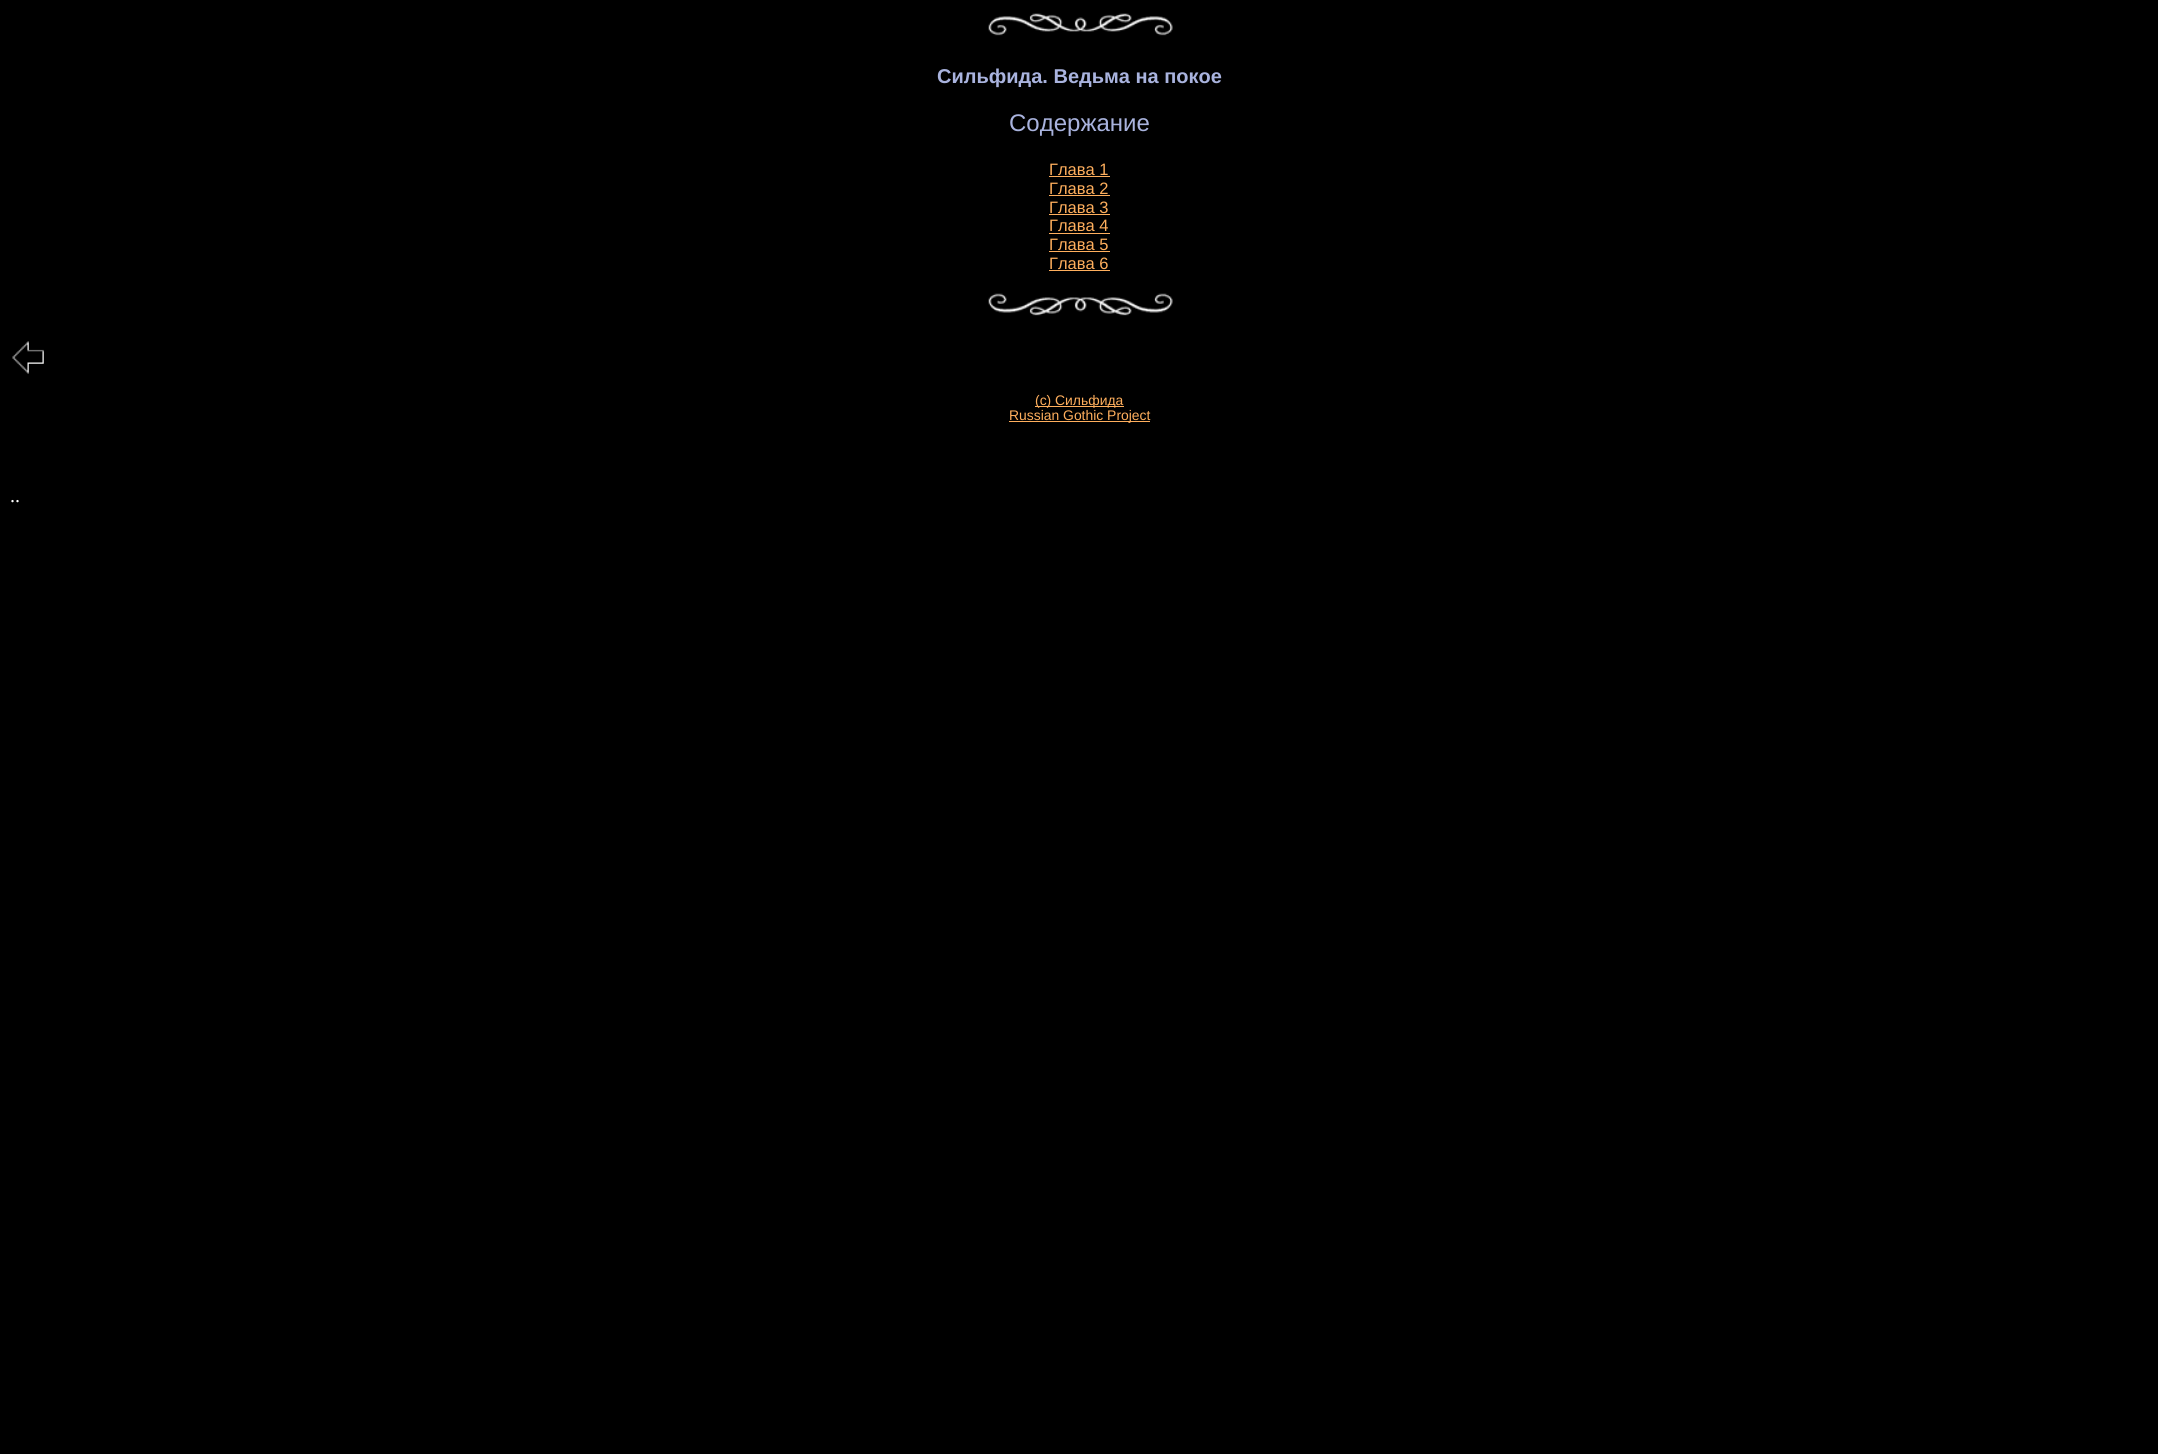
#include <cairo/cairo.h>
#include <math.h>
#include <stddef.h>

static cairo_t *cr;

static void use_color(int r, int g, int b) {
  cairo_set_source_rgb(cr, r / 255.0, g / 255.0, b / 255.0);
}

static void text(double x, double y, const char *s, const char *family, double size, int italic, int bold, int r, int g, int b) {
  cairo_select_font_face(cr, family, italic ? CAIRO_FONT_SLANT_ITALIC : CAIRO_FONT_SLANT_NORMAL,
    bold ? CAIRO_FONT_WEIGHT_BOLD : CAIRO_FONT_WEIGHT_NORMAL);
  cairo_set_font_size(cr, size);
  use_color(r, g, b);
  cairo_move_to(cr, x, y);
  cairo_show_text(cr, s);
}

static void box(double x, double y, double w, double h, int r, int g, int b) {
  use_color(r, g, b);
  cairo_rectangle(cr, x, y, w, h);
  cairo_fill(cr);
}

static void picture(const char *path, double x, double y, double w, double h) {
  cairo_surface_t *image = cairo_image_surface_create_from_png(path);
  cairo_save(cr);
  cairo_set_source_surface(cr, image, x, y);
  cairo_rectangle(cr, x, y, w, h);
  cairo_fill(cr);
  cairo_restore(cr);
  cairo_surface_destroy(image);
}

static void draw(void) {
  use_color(0, 0, 0);
  cairo_paint(cr);
  picture("img_01.png", 988, 13, 185, 23);
  box(1049, 176, 61, 1, 255, 175, 93);
  box(1049, 195, 61, 1, 255, 175, 93);
  box(1049, 214, 61, 1, 255, 175, 93);
  box(1049, 233, 61, 1, 255, 175, 93);
  box(1049, 251, 61, 1, 255, 175, 93);
  box(1049, 270, 61, 1, 255, 175, 93);
  picture("img_02.png", 988, 293, 185, 23);
  picture("img_03.png", 12, 341, 32, 33);
  box(1035, 406, 89, 1, 255, 175, 93);
  box(1009, 421, 141, 1, 255, 175, 93);
  text(937, 83, "Сильфида. Ведьма на покое", "Liberation Sans", 20, 0, 1, 169, 179, 222);
  text(1009, 131, "Содержание", "Liberation Sans", 24, 0, 0, 169, 179, 222);
  text(1049, 175, "Глава 1", "Liberation Sans", 16.5, 0, 0, 255, 175, 93);
  text(1049, 194, "Глава 2", "Liberation Sans", 16.5, 0, 0, 255, 175, 93);
  text(1049, 213, "Глава 3", "Liberation Sans", 16.5, 0, 0, 255, 175, 93);
  text(1049, 231, "Глава 4", "Liberation Sans", 16.5, 0, 0, 255, 175, 93);
  text(1049, 250, "Глава 5", "Liberation Sans", 16.5, 0, 0, 255, 175, 93);
  text(1049, 269, "Глава 6", "Liberation Sans", 16.5, 0, 0, 255, 175, 93);
  text(1035, 405, "(c) Сильфида", "Liberation Sans", 13.9, 0, 0, 255, 175, 93);
  text(1009, 420, "Russian Gothic Project", "Liberation Sans", 13.9, 0, 0, 255, 175, 93);
  text(10, 502, "..", "Liberation Serif", 20, 0, 0, 255, 255, 255);
}

int main(void) {
  cairo_surface_t *surface = cairo_image_surface_create(CAIRO_FORMAT_RGB24, 2158, 1454);
  cr = cairo_create(surface);
  cairo_font_options_t *options = cairo_font_options_create();
  cairo_font_options_set_hint_metrics(options, CAIRO_HINT_METRICS_OFF);
  cairo_font_options_set_hint_style(options, CAIRO_HINT_STYLE_NONE);
  cairo_set_font_options(cr, options);
  cairo_set_miter_limit(cr, 4);
  draw();
  cairo_surface_write_to_png(surface, "out.png");
  cairo_font_options_destroy(options);
  cairo_destroy(cr);
  cairo_surface_destroy(surface);
  return 0;
}
